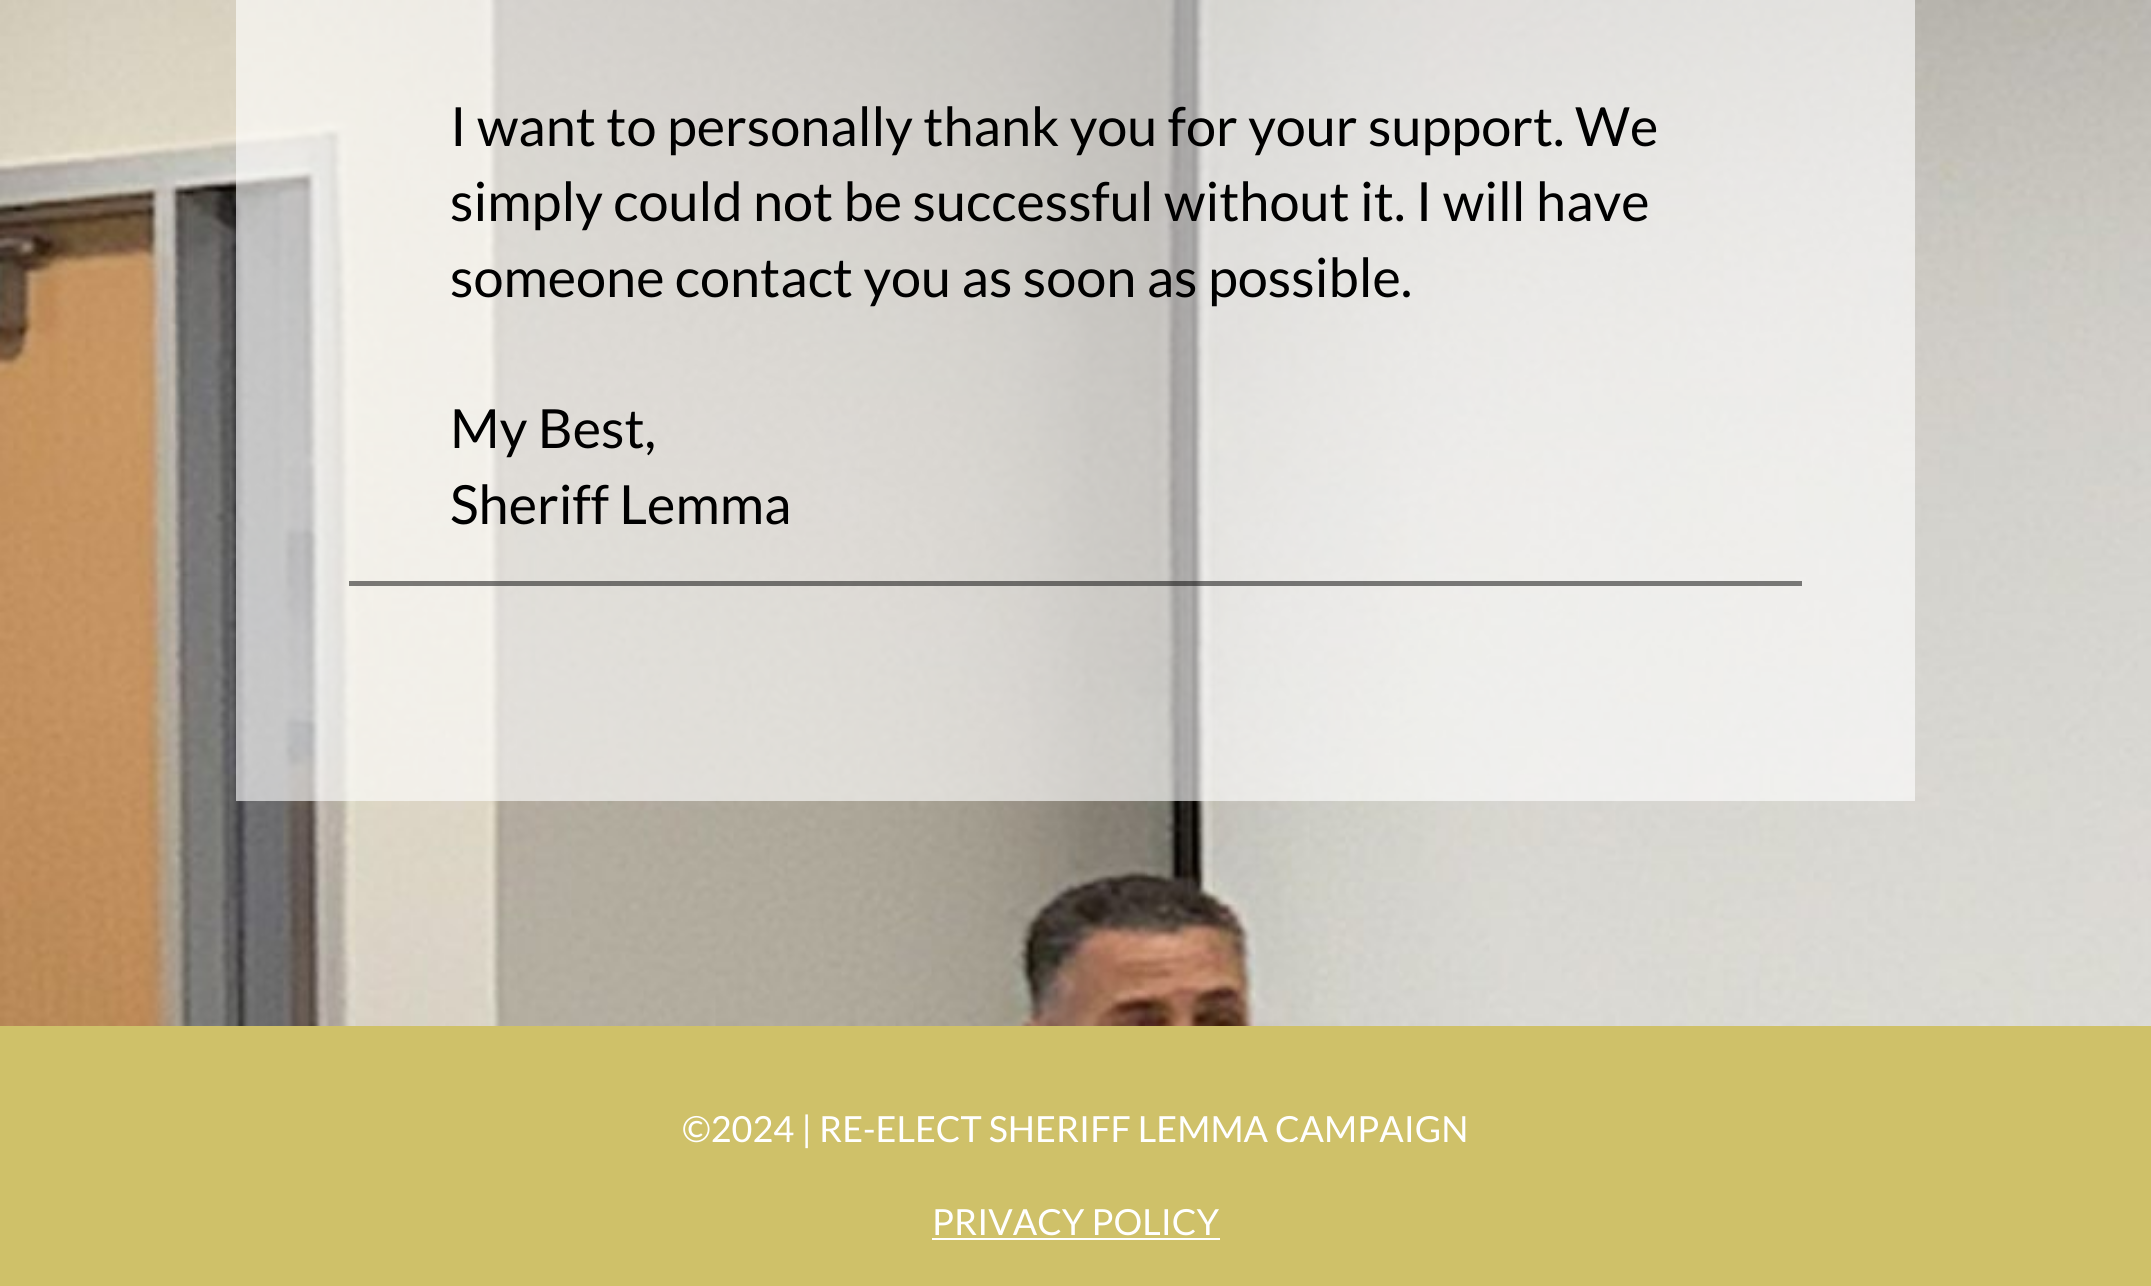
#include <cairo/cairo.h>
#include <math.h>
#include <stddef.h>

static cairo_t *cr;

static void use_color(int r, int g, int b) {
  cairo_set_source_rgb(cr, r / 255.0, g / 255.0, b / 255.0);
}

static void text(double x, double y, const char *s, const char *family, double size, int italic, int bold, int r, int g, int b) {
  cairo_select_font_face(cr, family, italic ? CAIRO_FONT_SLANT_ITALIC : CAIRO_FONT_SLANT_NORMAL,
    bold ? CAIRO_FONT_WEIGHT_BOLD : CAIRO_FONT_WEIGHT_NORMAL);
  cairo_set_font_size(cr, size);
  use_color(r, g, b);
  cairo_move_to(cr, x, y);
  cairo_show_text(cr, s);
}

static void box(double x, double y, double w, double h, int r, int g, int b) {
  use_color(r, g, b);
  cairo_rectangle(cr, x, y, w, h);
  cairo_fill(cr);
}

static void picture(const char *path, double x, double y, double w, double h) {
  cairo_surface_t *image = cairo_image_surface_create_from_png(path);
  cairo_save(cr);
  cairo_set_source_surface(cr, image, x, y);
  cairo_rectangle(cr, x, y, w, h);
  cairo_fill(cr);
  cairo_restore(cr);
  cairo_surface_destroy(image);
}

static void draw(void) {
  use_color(255, 255, 255);
  cairo_paint(cr);
  picture("img_01.png", 0, 0, 2151, 1026);
  cairo_set_source_rgba(cr, 1, 1, 1, 0.62);
  cairo_rectangle(cr, 236, 0, 1679, 801);
  cairo_fill(cr);
  cairo_set_source_rgba(cr, 0, 0, 0, 0.5);
  cairo_rectangle(cr, 349, 581, 1453, 5);
  cairo_fill(cr);
  box(0, 1026, 2151, 260, 207, 193, 105);
  box(932, 1238, 288, 2, 255, 255, 255);
  text(450, 146, "I want to personally thank you for your support. We", "Lato", 54, 0, 0, 0, 0, 0);
  text(450, 221, "simply could not be successful without it. I will have", "Lato", 54, 0, 0, 0, 0, 0);
  text(450, 297, "someone contact you as soon as possible.", "Lato", 54, 0, 0, 0, 0, 0);
  text(450, 448, "My Best,", "Lato", 54, 0, 0, 0, 0, 0);
  text(450, 524, "Sheriff Lemma", "Lato", 54, 0, 0, 0, 0, 0);
  text(682, 1142, "©2024 | RE-ELECT SHERIFF LEMMA CAMPAIGN", "Lato", 36, 0, 0, 255, 255, 255);
  text(932, 1235, "PRIVACY POLICY", "Lato", 36, 0, 0, 255, 255, 255);
}

int main(void) {
  cairo_surface_t *surface = cairo_image_surface_create(CAIRO_FORMAT_RGB24, 2151, 1286);
  cr = cairo_create(surface);
  cairo_font_options_t *options = cairo_font_options_create();
  cairo_font_options_set_hint_metrics(options, CAIRO_HINT_METRICS_OFF);
  cairo_font_options_set_hint_style(options, CAIRO_HINT_STYLE_NONE);
  cairo_set_font_options(cr, options);
  cairo_set_miter_limit(cr, 4);
  draw();
  cairo_surface_write_to_png(surface, "out.png");
  cairo_font_options_destroy(options);
  cairo_destroy(cr);
  cairo_surface_destroy(surface);
  return 0;
}
